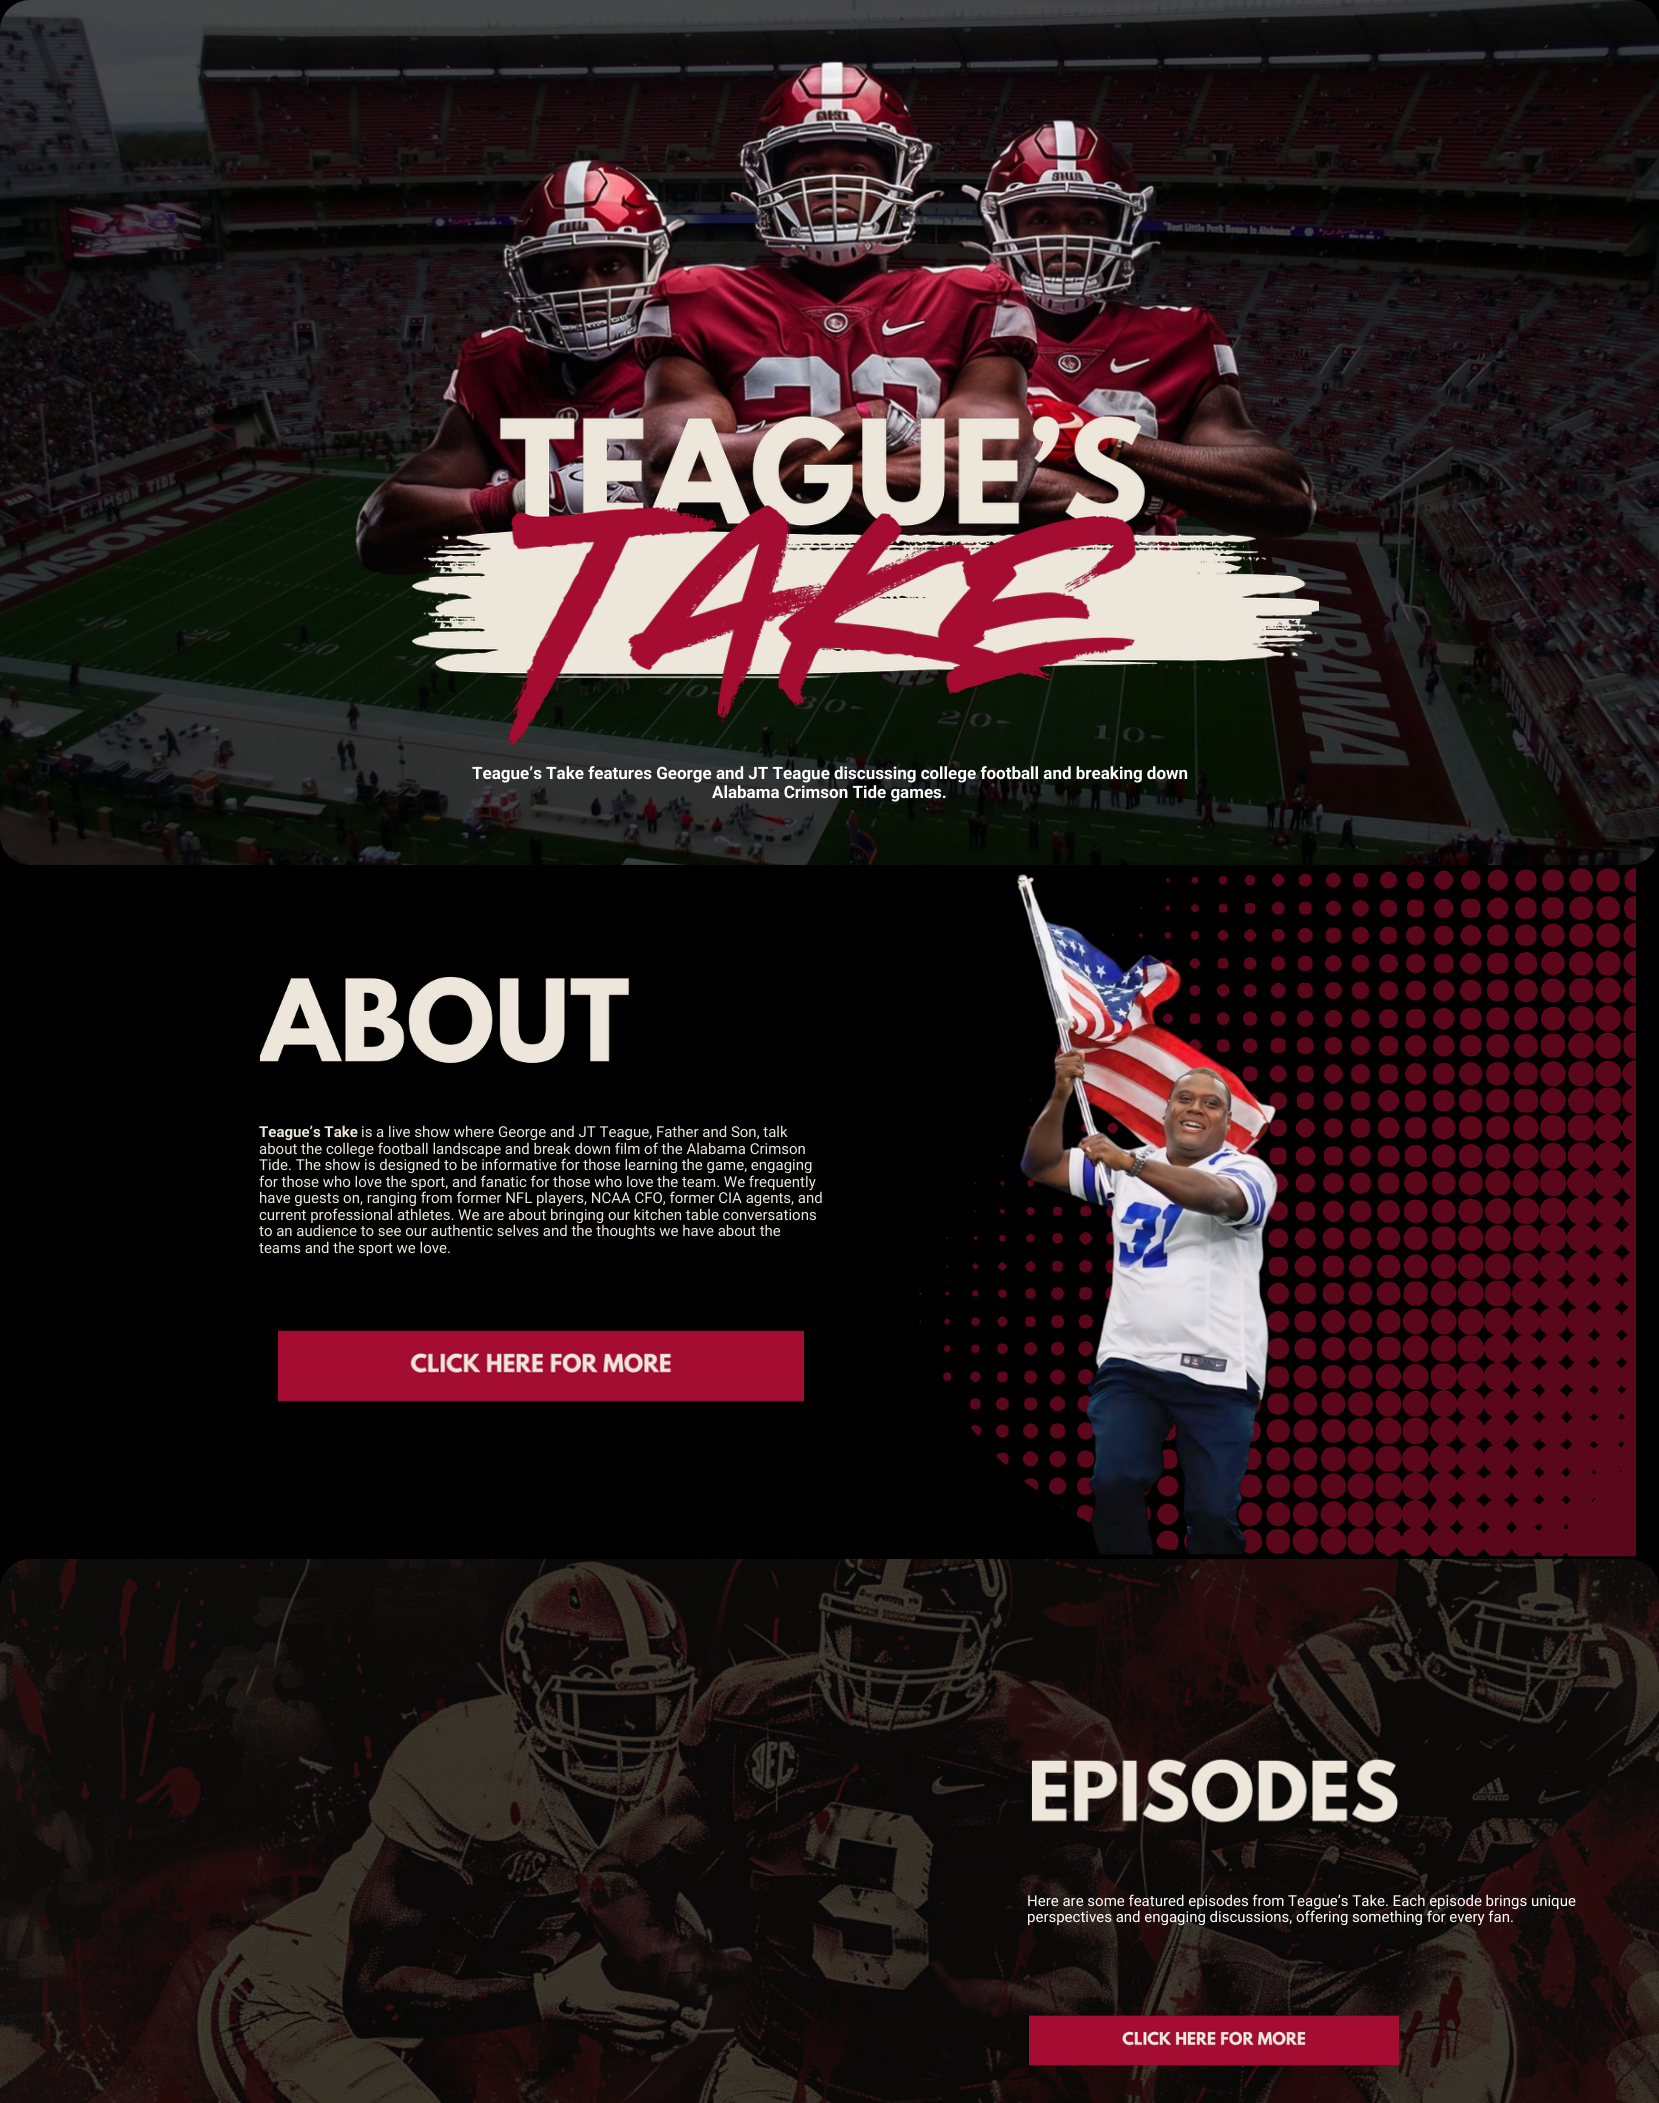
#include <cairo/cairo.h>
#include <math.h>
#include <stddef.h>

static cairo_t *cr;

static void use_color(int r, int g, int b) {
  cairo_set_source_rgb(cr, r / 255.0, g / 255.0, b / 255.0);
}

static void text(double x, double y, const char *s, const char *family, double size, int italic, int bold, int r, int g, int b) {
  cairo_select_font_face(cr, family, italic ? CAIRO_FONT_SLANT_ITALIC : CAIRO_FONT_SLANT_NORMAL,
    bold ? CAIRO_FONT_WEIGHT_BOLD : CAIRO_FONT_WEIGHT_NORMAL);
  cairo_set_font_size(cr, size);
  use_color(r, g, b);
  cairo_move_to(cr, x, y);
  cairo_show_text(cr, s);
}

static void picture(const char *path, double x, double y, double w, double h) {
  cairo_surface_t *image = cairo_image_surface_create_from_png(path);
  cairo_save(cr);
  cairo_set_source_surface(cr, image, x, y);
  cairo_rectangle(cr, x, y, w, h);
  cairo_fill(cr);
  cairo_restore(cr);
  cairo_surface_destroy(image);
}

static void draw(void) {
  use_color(0, 0, 0);
  cairo_paint(cr);
  picture("img_01.png", 0, 0, 1659, 865);
  picture("img_02.png", 355, 61, 963, 540);
  picture("img_04.png", 412, 531, 907, 148);
  picture("img_03.png", 499, 415, 647, 331);
  picture("img_05.png", 919, 868, 717, 689);
  picture("img_06.png", 260, 976, 370, 88);
  picture("img_07.png", 1016, 874, 262, 682);
  picture("img_08.png", 278, 1330, 526, 72);
  picture("img_09.png", 0, 1559, 1659, 544);
  picture("img_10.png", 1031, 1758, 368, 65);
  picture("img_11.png", 1029, 2015, 370, 51);
  text(472, 779, "Teague’s Take features George and JT Teague discussing college football and breaking down", "Roboto", 17, 0, 1, 255, 255, 255);
  text(712, 798, "Alabama Crimson Tide games.", "Roboto", 17, 0, 1, 255, 255, 255);
  text(259, 1137, "Teague’s Take", "Roboto", 15, 0, 1, 237, 230, 218);
  text(361, 1137, "is a live show where George and JT Teague, Father and Son, talk", "Roboto", 15, 0, 0, 237, 230, 218);
  text(259, 1154, "about the college football landscape and break down film of the Alabama Crimson", "Roboto", 15, 0, 0, 237, 230, 218);
  text(259, 1170, "Tide. The show is designed to be informative for those learning the game, engaging", "Roboto", 15, 0, 0, 237, 230, 218);
  text(259, 1187, "for those who love the sport, and fanatic for those who love the team. We frequently", "Roboto", 15, 0, 0, 237, 230, 218);
  text(259, 1203, "have guests on, ranging from former NFL players, NCAA CFO, former CIA agents, and", "Roboto", 15, 0, 0, 237, 230, 218);
  text(259, 1220, "current professional athletes. We are about bringing our kitchen table conversations", "Roboto", 15, 0, 0, 237, 230, 218);
  text(259, 1236, "to an audience to see our authentic selves and the thoughts we have about the", "Roboto", 15, 0, 0, 237, 230, 218);
  text(259, 1253, "teams and the sport we love.", "Roboto", 15, 0, 0, 237, 230, 218);
  text(1027, 1906, "Here are some featured episodes from Teague’s Take. Each episode brings unique", "Roboto", 15, 0, 0, 255, 255, 255);
  text(1027, 1922, "perspectives and engaging discussions, offering something for every fan.", "Roboto", 15, 0, 0, 255, 255, 255);
}

int main(void) {
  cairo_surface_t *surface = cairo_image_surface_create(CAIRO_FORMAT_RGB24, 1659, 2103);
  cr = cairo_create(surface);
  cairo_font_options_t *options = cairo_font_options_create();
  cairo_font_options_set_hint_metrics(options, CAIRO_HINT_METRICS_OFF);
  cairo_font_options_set_hint_style(options, CAIRO_HINT_STYLE_NONE);
  cairo_set_font_options(cr, options);
  cairo_set_miter_limit(cr, 4);
  draw();
  cairo_surface_write_to_png(surface, "out.png");
  cairo_font_options_destroy(options);
  cairo_destroy(cr);
  cairo_surface_destroy(surface);
  return 0;
}
